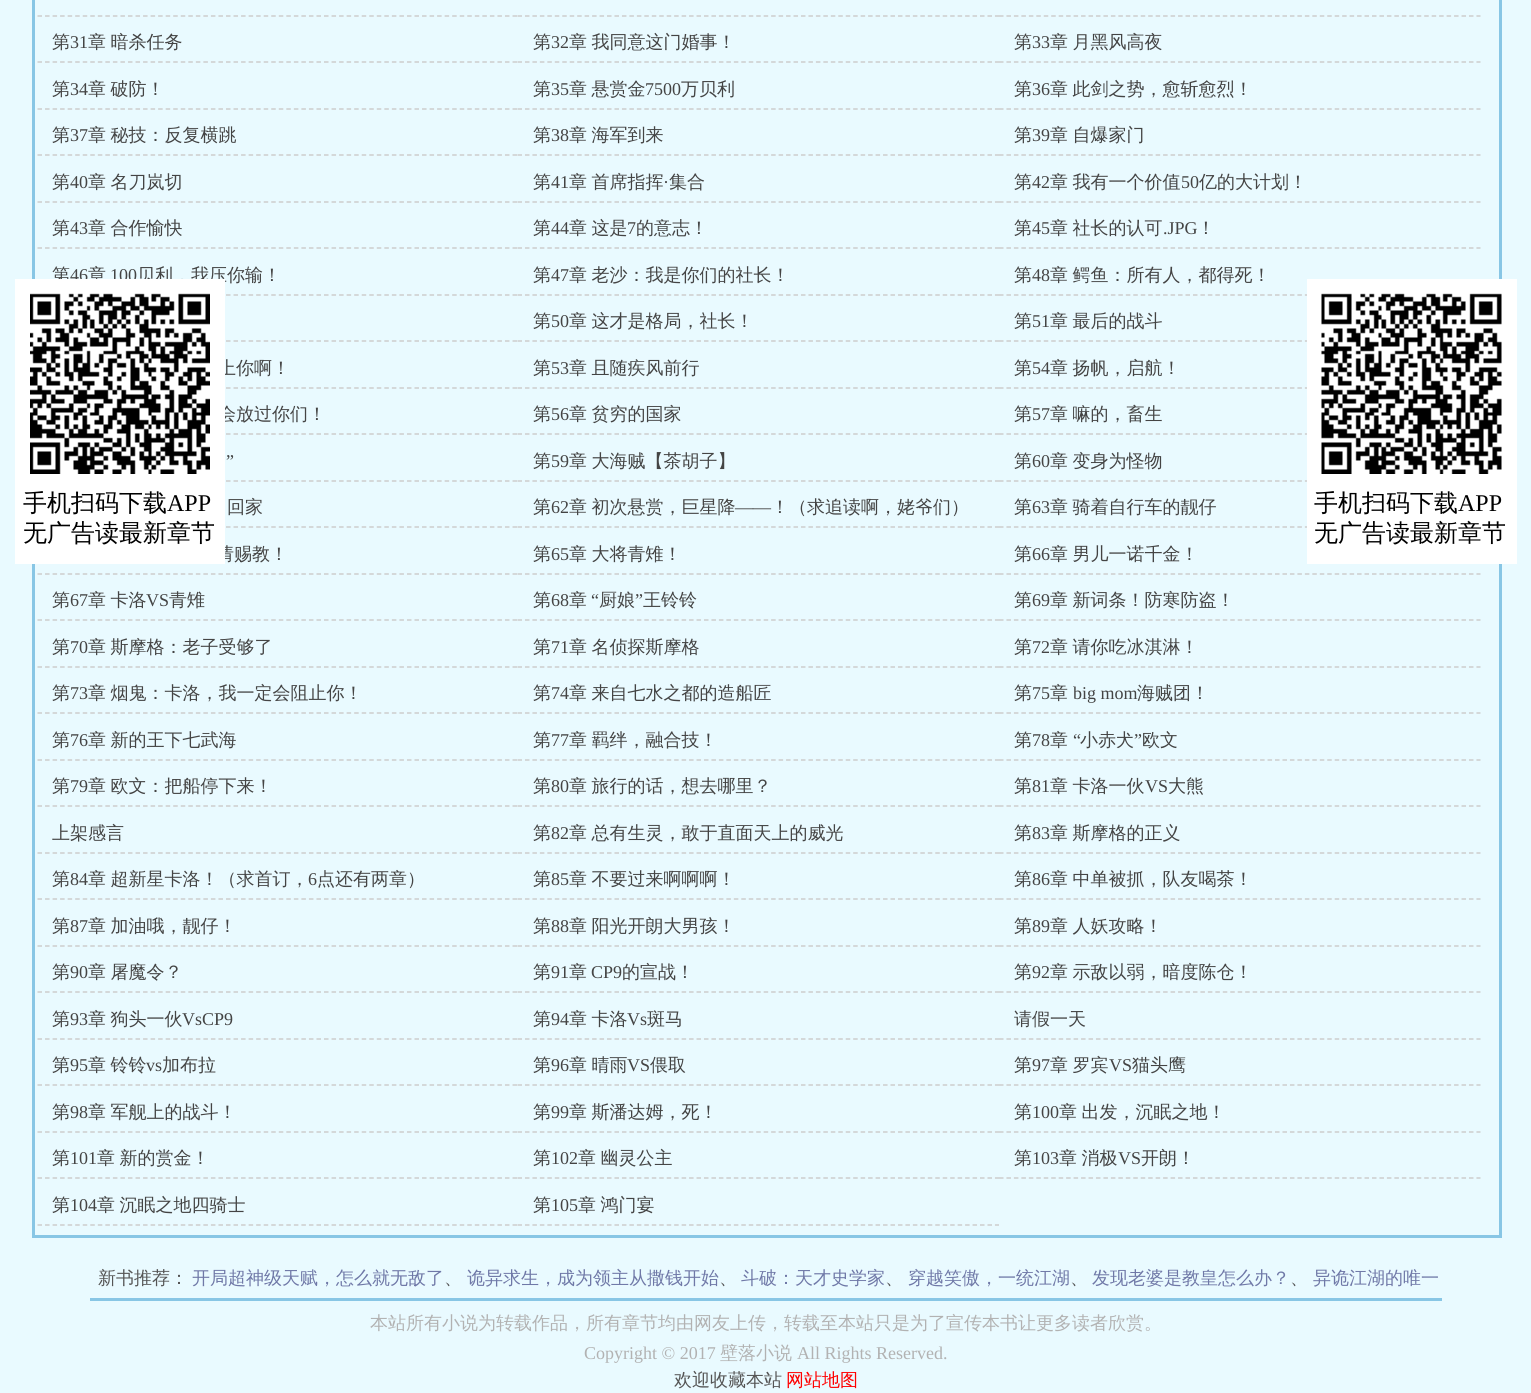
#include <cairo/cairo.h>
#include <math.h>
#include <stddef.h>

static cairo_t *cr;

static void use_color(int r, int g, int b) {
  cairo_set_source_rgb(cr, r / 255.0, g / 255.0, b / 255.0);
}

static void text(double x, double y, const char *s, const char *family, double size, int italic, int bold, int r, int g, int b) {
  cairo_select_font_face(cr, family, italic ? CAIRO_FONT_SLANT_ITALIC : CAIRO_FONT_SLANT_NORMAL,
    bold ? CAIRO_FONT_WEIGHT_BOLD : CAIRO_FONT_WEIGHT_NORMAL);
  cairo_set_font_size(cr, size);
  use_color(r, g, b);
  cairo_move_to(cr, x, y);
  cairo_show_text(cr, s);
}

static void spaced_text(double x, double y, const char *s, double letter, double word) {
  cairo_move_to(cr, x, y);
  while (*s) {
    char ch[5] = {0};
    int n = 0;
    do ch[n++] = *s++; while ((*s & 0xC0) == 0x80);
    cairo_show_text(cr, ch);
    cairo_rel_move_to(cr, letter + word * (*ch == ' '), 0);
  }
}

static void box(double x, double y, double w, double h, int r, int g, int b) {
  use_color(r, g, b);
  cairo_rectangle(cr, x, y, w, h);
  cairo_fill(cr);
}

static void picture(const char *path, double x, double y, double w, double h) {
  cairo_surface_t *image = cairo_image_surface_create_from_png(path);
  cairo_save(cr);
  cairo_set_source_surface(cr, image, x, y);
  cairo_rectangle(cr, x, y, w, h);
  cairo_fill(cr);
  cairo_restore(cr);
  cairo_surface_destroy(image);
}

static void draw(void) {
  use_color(233, 250, 255);
  cairo_paint(cr);
  cairo_rectangle(cr, 33.5, -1.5, 1467, 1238);
  use_color(136, 198, 229);
  cairo_set_line_width(cr, 3);
  cairo_stroke(cr);
  cairo_new_path(cr);
  cairo_move_to(cr, 37.5, 16);
  cairo_line_to(cr, 517.5, 16);
  use_color(204, 204, 204);
  cairo_set_line_width(cr, 1.5);
  cairo_set_dash(cr, (double[]){4.5, 3.04}, 2, 0);
  cairo_stroke(cr);
  cairo_new_path(cr);
  cairo_move_to(cr, 517.5, 16);
  cairo_line_to(cr, 999, 16);
  cairo_set_dash(cr, (double[]){4.5, 2.96}, 2, 0);
  cairo_stroke(cr);
  cairo_new_path(cr);
  cairo_move_to(cr, 999, 16);
  cairo_line_to(cr, 1480.5, 16);
  cairo_stroke(cr);
  cairo_new_path(cr);
  cairo_move_to(cr, 37.5, 62);
  cairo_line_to(cr, 517.5, 62);
  cairo_set_dash(cr, (double[]){4.5, 3.04}, 2, 0);
  cairo_stroke(cr);
  cairo_new_path(cr);
  cairo_move_to(cr, 517.5, 62);
  cairo_line_to(cr, 999, 62);
  cairo_set_dash(cr, (double[]){4.5, 2.96}, 2, 0);
  cairo_stroke(cr);
  cairo_new_path(cr);
  cairo_move_to(cr, 999, 62);
  cairo_line_to(cr, 1480.5, 62);
  cairo_stroke(cr);
  cairo_new_path(cr);
  cairo_move_to(cr, 37.5, 109);
  cairo_line_to(cr, 517.5, 109);
  cairo_set_dash(cr, (double[]){4.5, 3.04}, 2, 0);
  cairo_stroke(cr);
  cairo_new_path(cr);
  cairo_move_to(cr, 517.5, 109);
  cairo_line_to(cr, 999, 109);
  cairo_set_dash(cr, (double[]){4.5, 2.96}, 2, 0);
  cairo_stroke(cr);
  cairo_new_path(cr);
  cairo_move_to(cr, 999, 109);
  cairo_line_to(cr, 1480.5, 109);
  cairo_stroke(cr);
  cairo_new_path(cr);
  cairo_move_to(cr, 37.5, 155);
  cairo_line_to(cr, 517.5, 155);
  cairo_set_dash(cr, (double[]){4.5, 3.04}, 2, 0);
  cairo_stroke(cr);
  cairo_new_path(cr);
  cairo_move_to(cr, 517.5, 155);
  cairo_line_to(cr, 999, 155);
  cairo_set_dash(cr, (double[]){4.5, 2.96}, 2, 0);
  cairo_stroke(cr);
  cairo_new_path(cr);
  cairo_move_to(cr, 999, 155);
  cairo_line_to(cr, 1480.5, 155);
  cairo_stroke(cr);
  cairo_new_path(cr);
  cairo_move_to(cr, 37.5, 202);
  cairo_line_to(cr, 517.5, 202);
  cairo_set_dash(cr, (double[]){4.5, 3.04}, 2, 0);
  cairo_stroke(cr);
  cairo_new_path(cr);
  cairo_move_to(cr, 517.5, 202);
  cairo_line_to(cr, 999, 202);
  cairo_set_dash(cr, (double[]){4.5, 2.96}, 2, 0);
  cairo_stroke(cr);
  cairo_new_path(cr);
  cairo_move_to(cr, 999, 202);
  cairo_line_to(cr, 1480.5, 202);
  cairo_stroke(cr);
  cairo_new_path(cr);
  cairo_move_to(cr, 37.5, 248);
  cairo_line_to(cr, 517.5, 248);
  cairo_set_dash(cr, (double[]){4.5, 3.04}, 2, 0);
  cairo_stroke(cr);
  cairo_new_path(cr);
  cairo_move_to(cr, 517.5, 248);
  cairo_line_to(cr, 999, 248);
  cairo_set_dash(cr, (double[]){4.5, 2.96}, 2, 0);
  cairo_stroke(cr);
  cairo_new_path(cr);
  cairo_move_to(cr, 999, 248);
  cairo_line_to(cr, 1480.5, 248);
  cairo_stroke(cr);
  cairo_new_path(cr);
  cairo_move_to(cr, 37.5, 295);
  cairo_line_to(cr, 517.5, 295);
  cairo_set_dash(cr, (double[]){4.5, 3.04}, 2, 0);
  cairo_stroke(cr);
  cairo_new_path(cr);
  cairo_move_to(cr, 517.5, 295);
  cairo_line_to(cr, 999, 295);
  cairo_set_dash(cr, (double[]){4.5, 2.96}, 2, 0);
  cairo_stroke(cr);
  cairo_new_path(cr);
  cairo_move_to(cr, 999, 295);
  cairo_line_to(cr, 1480.5, 295);
  cairo_stroke(cr);
  cairo_new_path(cr);
  cairo_move_to(cr, 37.5, 341);
  cairo_line_to(cr, 517.5, 341);
  cairo_set_dash(cr, (double[]){4.5, 3.04}, 2, 0);
  cairo_stroke(cr);
  cairo_new_path(cr);
  cairo_move_to(cr, 517.5, 341);
  cairo_line_to(cr, 999, 341);
  cairo_set_dash(cr, (double[]){4.5, 2.96}, 2, 0);
  cairo_stroke(cr);
  cairo_new_path(cr);
  cairo_move_to(cr, 999, 341);
  cairo_line_to(cr, 1480.5, 341);
  cairo_stroke(cr);
  cairo_new_path(cr);
  cairo_move_to(cr, 37.5, 388);
  cairo_line_to(cr, 517.5, 388);
  cairo_set_dash(cr, (double[]){4.5, 3.04}, 2, 0);
  cairo_stroke(cr);
  cairo_new_path(cr);
  cairo_move_to(cr, 517.5, 388);
  cairo_line_to(cr, 999, 388);
  cairo_set_dash(cr, (double[]){4.5, 2.96}, 2, 0);
  cairo_stroke(cr);
  cairo_new_path(cr);
  cairo_move_to(cr, 999, 388);
  cairo_line_to(cr, 1480.5, 388);
  cairo_stroke(cr);
  cairo_new_path(cr);
  cairo_move_to(cr, 37.5, 434);
  cairo_line_to(cr, 517.5, 434);
  cairo_set_dash(cr, (double[]){4.5, 3.04}, 2, 0);
  cairo_stroke(cr);
  cairo_new_path(cr);
  cairo_move_to(cr, 517.5, 434);
  cairo_line_to(cr, 999, 434);
  cairo_set_dash(cr, (double[]){4.5, 2.96}, 2, 0);
  cairo_stroke(cr);
  cairo_new_path(cr);
  cairo_move_to(cr, 999, 434);
  cairo_line_to(cr, 1480.5, 434);
  cairo_stroke(cr);
  cairo_new_path(cr);
  cairo_move_to(cr, 37.5, 481);
  cairo_line_to(cr, 517.5, 481);
  cairo_set_dash(cr, (double[]){4.5, 3.04}, 2, 0);
  cairo_stroke(cr);
  cairo_new_path(cr);
  cairo_move_to(cr, 517.5, 481);
  cairo_line_to(cr, 999, 481);
  cairo_set_dash(cr, (double[]){4.5, 2.96}, 2, 0);
  cairo_stroke(cr);
  cairo_new_path(cr);
  cairo_move_to(cr, 999, 481);
  cairo_line_to(cr, 1480.5, 481);
  cairo_stroke(cr);
  cairo_new_path(cr);
  cairo_move_to(cr, 37.5, 527);
  cairo_line_to(cr, 517.5, 527);
  cairo_set_dash(cr, (double[]){4.5, 3.04}, 2, 0);
  cairo_stroke(cr);
  cairo_new_path(cr);
  cairo_move_to(cr, 517.5, 527);
  cairo_line_to(cr, 999, 527);
  cairo_set_dash(cr, (double[]){4.5, 2.96}, 2, 0);
  cairo_stroke(cr);
  cairo_new_path(cr);
  cairo_move_to(cr, 999, 527);
  cairo_line_to(cr, 1480.5, 527);
  cairo_stroke(cr);
  cairo_new_path(cr);
  cairo_move_to(cr, 37.5, 574);
  cairo_line_to(cr, 517.5, 574);
  cairo_set_dash(cr, (double[]){4.5, 3.04}, 2, 0);
  cairo_stroke(cr);
  cairo_new_path(cr);
  cairo_move_to(cr, 517.5, 574);
  cairo_line_to(cr, 999, 574);
  cairo_set_dash(cr, (double[]){4.5, 2.96}, 2, 0);
  cairo_stroke(cr);
  cairo_new_path(cr);
  cairo_move_to(cr, 999, 574);
  cairo_line_to(cr, 1480.5, 574);
  cairo_stroke(cr);
  cairo_new_path(cr);
  cairo_move_to(cr, 37.5, 620);
  cairo_line_to(cr, 517.5, 620);
  cairo_set_dash(cr, (double[]){4.5, 3.04}, 2, 0);
  cairo_stroke(cr);
  cairo_new_path(cr);
  cairo_move_to(cr, 517.5, 620);
  cairo_line_to(cr, 999, 620);
  cairo_set_dash(cr, (double[]){4.5, 2.96}, 2, 0);
  cairo_stroke(cr);
  cairo_new_path(cr);
  cairo_move_to(cr, 999, 620);
  cairo_line_to(cr, 1480.5, 620);
  cairo_stroke(cr);
  cairo_new_path(cr);
  cairo_move_to(cr, 37.5, 667);
  cairo_line_to(cr, 517.5, 667);
  cairo_set_dash(cr, (double[]){4.5, 3.04}, 2, 0);
  cairo_stroke(cr);
  cairo_new_path(cr);
  cairo_move_to(cr, 517.5, 667);
  cairo_line_to(cr, 999, 667);
  cairo_set_dash(cr, (double[]){4.5, 2.96}, 2, 0);
  cairo_stroke(cr);
  cairo_new_path(cr);
  cairo_move_to(cr, 999, 667);
  cairo_line_to(cr, 1480.5, 667);
  cairo_stroke(cr);
  cairo_new_path(cr);
  cairo_move_to(cr, 37.5, 713);
  cairo_line_to(cr, 517.5, 713);
  cairo_set_dash(cr, (double[]){4.5, 3.04}, 2, 0);
  cairo_stroke(cr);
  cairo_new_path(cr);
  cairo_move_to(cr, 517.5, 713);
  cairo_line_to(cr, 999, 713);
  cairo_set_dash(cr, (double[]){4.5, 2.96}, 2, 0);
  cairo_stroke(cr);
  cairo_new_path(cr);
  cairo_move_to(cr, 999, 713);
  cairo_line_to(cr, 1480.5, 713);
  cairo_stroke(cr);
  cairo_new_path(cr);
  cairo_move_to(cr, 37.5, 760);
  cairo_line_to(cr, 517.5, 760);
  cairo_set_dash(cr, (double[]){4.5, 3.04}, 2, 0);
  cairo_stroke(cr);
  cairo_new_path(cr);
  cairo_move_to(cr, 517.5, 760);
  cairo_line_to(cr, 999, 760);
  cairo_set_dash(cr, (double[]){4.5, 2.96}, 2, 0);
  cairo_stroke(cr);
  cairo_new_path(cr);
  cairo_move_to(cr, 999, 760);
  cairo_line_to(cr, 1480.5, 760);
  cairo_stroke(cr);
  cairo_new_path(cr);
  cairo_move_to(cr, 37.5, 806);
  cairo_line_to(cr, 517.5, 806);
  cairo_set_dash(cr, (double[]){4.5, 3.04}, 2, 0);
  cairo_stroke(cr);
  cairo_new_path(cr);
  cairo_move_to(cr, 517.5, 806);
  cairo_line_to(cr, 999, 806);
  cairo_set_dash(cr, (double[]){4.5, 2.96}, 2, 0);
  cairo_stroke(cr);
  cairo_new_path(cr);
  cairo_move_to(cr, 999, 806);
  cairo_line_to(cr, 1480.5, 806);
  cairo_stroke(cr);
  cairo_new_path(cr);
  cairo_move_to(cr, 37.5, 853);
  cairo_line_to(cr, 517.5, 853);
  cairo_set_dash(cr, (double[]){4.5, 3.04}, 2, 0);
  cairo_stroke(cr);
  cairo_new_path(cr);
  cairo_move_to(cr, 517.5, 853);
  cairo_line_to(cr, 999, 853);
  cairo_set_dash(cr, (double[]){4.5, 2.96}, 2, 0);
  cairo_stroke(cr);
  cairo_new_path(cr);
  cairo_move_to(cr, 999, 853);
  cairo_line_to(cr, 1480.5, 853);
  cairo_stroke(cr);
  cairo_new_path(cr);
  cairo_move_to(cr, 37.5, 899);
  cairo_line_to(cr, 517.5, 899);
  cairo_set_dash(cr, (double[]){4.5, 3.04}, 2, 0);
  cairo_stroke(cr);
  cairo_new_path(cr);
  cairo_move_to(cr, 517.5, 899);
  cairo_line_to(cr, 999, 899);
  cairo_set_dash(cr, (double[]){4.5, 2.96}, 2, 0);
  cairo_stroke(cr);
  cairo_new_path(cr);
  cairo_move_to(cr, 999, 899);
  cairo_line_to(cr, 1480.5, 899);
  cairo_stroke(cr);
  cairo_new_path(cr);
  cairo_move_to(cr, 37.5, 946);
  cairo_line_to(cr, 517.5, 946);
  cairo_set_dash(cr, (double[]){4.5, 3.04}, 2, 0);
  cairo_stroke(cr);
  cairo_new_path(cr);
  cairo_move_to(cr, 517.5, 946);
  cairo_line_to(cr, 999, 946);
  cairo_set_dash(cr, (double[]){4.5, 2.96}, 2, 0);
  cairo_stroke(cr);
  cairo_new_path(cr);
  cairo_move_to(cr, 999, 946);
  cairo_line_to(cr, 1480.5, 946);
  cairo_stroke(cr);
  cairo_new_path(cr);
  cairo_move_to(cr, 37.5, 992);
  cairo_line_to(cr, 517.5, 992);
  cairo_set_dash(cr, (double[]){4.5, 3.04}, 2, 0);
  cairo_stroke(cr);
  cairo_new_path(cr);
  cairo_move_to(cr, 517.5, 992);
  cairo_line_to(cr, 999, 992);
  cairo_set_dash(cr, (double[]){4.5, 2.96}, 2, 0);
  cairo_stroke(cr);
  cairo_new_path(cr);
  cairo_move_to(cr, 999, 992);
  cairo_line_to(cr, 1480.5, 992);
  cairo_stroke(cr);
  cairo_new_path(cr);
  cairo_move_to(cr, 37.5, 1039);
  cairo_line_to(cr, 517.5, 1039);
  cairo_set_dash(cr, (double[]){4.5, 3.04}, 2, 0);
  cairo_stroke(cr);
  cairo_new_path(cr);
  cairo_move_to(cr, 517.5, 1039);
  cairo_line_to(cr, 999, 1039);
  cairo_set_dash(cr, (double[]){4.5, 2.96}, 2, 0);
  cairo_stroke(cr);
  cairo_new_path(cr);
  cairo_move_to(cr, 999, 1039);
  cairo_line_to(cr, 1480.5, 1039);
  cairo_stroke(cr);
  cairo_new_path(cr);
  cairo_move_to(cr, 37.5, 1085);
  cairo_line_to(cr, 517.5, 1085);
  cairo_set_dash(cr, (double[]){4.5, 3.04}, 2, 0);
  cairo_stroke(cr);
  cairo_new_path(cr);
  cairo_move_to(cr, 517.5, 1085);
  cairo_line_to(cr, 999, 1085);
  cairo_set_dash(cr, (double[]){4.5, 2.96}, 2, 0);
  cairo_stroke(cr);
  cairo_new_path(cr);
  cairo_move_to(cr, 999, 1085);
  cairo_line_to(cr, 1480.5, 1085);
  cairo_stroke(cr);
  cairo_new_path(cr);
  cairo_move_to(cr, 37.5, 1132);
  cairo_line_to(cr, 517.5, 1132);
  cairo_set_dash(cr, (double[]){4.5, 3.04}, 2, 0);
  cairo_stroke(cr);
  cairo_new_path(cr);
  cairo_move_to(cr, 517.5, 1132);
  cairo_line_to(cr, 999, 1132);
  cairo_set_dash(cr, (double[]){4.5, 2.96}, 2, 0);
  cairo_stroke(cr);
  cairo_new_path(cr);
  cairo_move_to(cr, 999, 1132);
  cairo_line_to(cr, 1480.5, 1132);
  cairo_stroke(cr);
  cairo_new_path(cr);
  cairo_move_to(cr, 37.5, 1178);
  cairo_line_to(cr, 517.5, 1178);
  cairo_set_dash(cr, (double[]){4.5, 3.04}, 2, 0);
  cairo_stroke(cr);
  cairo_new_path(cr);
  cairo_move_to(cr, 517.5, 1178);
  cairo_line_to(cr, 999, 1178);
  cairo_set_dash(cr, (double[]){4.5, 2.96}, 2, 0);
  cairo_stroke(cr);
  cairo_new_path(cr);
  cairo_move_to(cr, 999, 1178);
  cairo_line_to(cr, 1480.5, 1178);
  cairo_stroke(cr);
  cairo_new_path(cr);
  cairo_move_to(cr, 37.5, 1225);
  cairo_line_to(cr, 517.5, 1225);
  cairo_set_dash(cr, (double[]){4.5, 3.04}, 2, 0);
  cairo_stroke(cr);
  cairo_new_path(cr);
  cairo_move_to(cr, 517.5, 1225);
  cairo_line_to(cr, 999, 1225);
  cairo_set_dash(cr, (double[]){4.5, 2.96}, 2, 0);
  cairo_stroke(cr);
  box(1307, 279, 210, 285, 255, 255, 255);
  picture("img_02.png", 1321, 293, 181, 181);
  box(90, 1298, 1352, 3, 136, 198, 229);
  text(52, 48, "第", "WenQuanYi Zen Hei Medium", 18, 0, 0, 68, 68, 68);
  text(70, 48, "31", "Liberation Serif", 18, 0, 0, 68, 68, 68);
  cairo_select_font_face(cr, "WenQuanYi Zen Hei Medium", CAIRO_FONT_SLANT_NORMAL, CAIRO_FONT_WEIGHT_NORMAL);
  spaced_text(88, 48, "章 暗杀任务", 0, -1);
  text(533, 48, "第", "WenQuanYi Zen Hei Medium", 18, 0, 0, 68, 68, 68);
  text(551, 48, "32", "Liberation Serif", 18, 0, 0, 68, 68, 68);
  cairo_select_font_face(cr, "WenQuanYi Zen Hei Medium", CAIRO_FONT_SLANT_NORMAL, CAIRO_FONT_WEIGHT_NORMAL);
  spaced_text(569, 48, "章 我同意这门婚事！", 0, -1);
  text(1014, 48, "第", "WenQuanYi Zen Hei Medium", 18, 0, 0, 68, 68, 68);
  text(1032, 48, "33", "Liberation Serif", 18, 0, 0, 68, 68, 68);
  cairo_select_font_face(cr, "WenQuanYi Zen Hei Medium", CAIRO_FONT_SLANT_NORMAL, CAIRO_FONT_WEIGHT_NORMAL);
  spaced_text(1050, 48, "章 月黑风高夜", 0, -1);
  text(52, 95, "第", "WenQuanYi Zen Hei Medium", 18, 0, 0, 68, 68, 68);
  text(70, 95, "34", "Liberation Serif", 18, 0, 0, 68, 68, 68);
  cairo_select_font_face(cr, "WenQuanYi Zen Hei Medium", CAIRO_FONT_SLANT_NORMAL, CAIRO_FONT_WEIGHT_NORMAL);
  spaced_text(88, 95, "章 破防！", 0, -1);
  text(533, 95, "第", "WenQuanYi Zen Hei Medium", 18, 0, 0, 68, 68, 68);
  text(551, 95, "35", "Liberation Serif", 18, 0, 0, 68, 68, 68);
  cairo_select_font_face(cr, "WenQuanYi Zen Hei Medium", CAIRO_FONT_SLANT_NORMAL, CAIRO_FONT_WEIGHT_NORMAL);
  spaced_text(569, 95, "章 悬赏金", 0, -1);
  text(645, 95, "7500", "Liberation Serif", 18, 0, 0, 68, 68, 68);
  text(681, 95, "万贝利", "WenQuanYi Zen Hei Medium", 18, 0, 0, 68, 68, 68);
  text(1014, 95, "第", "WenQuanYi Zen Hei Medium", 18, 0, 0, 68, 68, 68);
  text(1032, 95, "36", "Liberation Serif", 18, 0, 0, 68, 68, 68);
  cairo_select_font_face(cr, "WenQuanYi Zen Hei Medium", CAIRO_FONT_SLANT_NORMAL, CAIRO_FONT_WEIGHT_NORMAL);
  spaced_text(1050, 95, "章 此剑之势，愈斩愈烈！", 0, -1);
  text(52, 141, "第", "WenQuanYi Zen Hei Medium", 18, 0, 0, 68, 68, 68);
  text(70, 141, "37", "Liberation Serif", 18, 0, 0, 68, 68, 68);
  cairo_select_font_face(cr, "WenQuanYi Zen Hei Medium", CAIRO_FONT_SLANT_NORMAL, CAIRO_FONT_WEIGHT_NORMAL);
  spaced_text(88, 141, "章 秘技：反复横跳", 0, -1);
  text(533, 141, "第", "WenQuanYi Zen Hei Medium", 18, 0, 0, 68, 68, 68);
  text(551, 141, "38", "Liberation Serif", 18, 0, 0, 68, 68, 68);
  cairo_select_font_face(cr, "WenQuanYi Zen Hei Medium", CAIRO_FONT_SLANT_NORMAL, CAIRO_FONT_WEIGHT_NORMAL);
  spaced_text(569, 141, "章 海军到来", 0, -1);
  text(1014, 141, "第", "WenQuanYi Zen Hei Medium", 18, 0, 0, 68, 68, 68);
  text(1032, 141, "39", "Liberation Serif", 18, 0, 0, 68, 68, 68);
  cairo_select_font_face(cr, "WenQuanYi Zen Hei Medium", CAIRO_FONT_SLANT_NORMAL, CAIRO_FONT_WEIGHT_NORMAL);
  spaced_text(1050, 141, "章 自爆家门", 0, -1);
  text(52, 188, "第", "WenQuanYi Zen Hei Medium", 18, 0, 0, 68, 68, 68);
  text(70, 188, "40", "Liberation Serif", 18, 0, 0, 68, 68, 68);
  cairo_select_font_face(cr, "WenQuanYi Zen Hei Medium", CAIRO_FONT_SLANT_NORMAL, CAIRO_FONT_WEIGHT_NORMAL);
  spaced_text(88, 188, "章 名刀岚切", 0, -1);
  text(533, 188, "第", "WenQuanYi Zen Hei Medium", 18, 0, 0, 68, 68, 68);
  text(551, 188, "41", "Liberation Serif", 18, 0, 0, 68, 68, 68);
  cairo_select_font_face(cr, "WenQuanYi Zen Hei Medium", CAIRO_FONT_SLANT_NORMAL, CAIRO_FONT_WEIGHT_NORMAL);
  spaced_text(569, 188, "章 首席指挥", 0, -1);
  text(663, 188, "·", "Liberation Serif", 18, 0, 0, 68, 68, 68);
  text(669, 188, "集合", "WenQuanYi Zen Hei Medium", 18, 0, 0, 68, 68, 68);
  text(1014, 188, "第", "WenQuanYi Zen Hei Medium", 18, 0, 0, 68, 68, 68);
  text(1032, 188, "42", "Liberation Serif", 18, 0, 0, 68, 68, 68);
  cairo_select_font_face(cr, "WenQuanYi Zen Hei Medium", CAIRO_FONT_SLANT_NORMAL, CAIRO_FONT_WEIGHT_NORMAL);
  spaced_text(1050, 188, "章 我有一个价值", 0, -1);
  text(1181, 188, "50", "Liberation Serif", 18, 0, 0, 68, 68, 68);
  text(1199, 188, "亿的大计划！", "WenQuanYi Zen Hei Medium", 18, 0, 0, 68, 68, 68);
  text(52, 234, "第", "WenQuanYi Zen Hei Medium", 18, 0, 0, 68, 68, 68);
  text(70, 234, "43", "Liberation Serif", 18, 0, 0, 68, 68, 68);
  cairo_select_font_face(cr, "WenQuanYi Zen Hei Medium", CAIRO_FONT_SLANT_NORMAL, CAIRO_FONT_WEIGHT_NORMAL);
  spaced_text(88, 234, "章 合作愉快", 0, -1);
  text(533, 234, "第", "WenQuanYi Zen Hei Medium", 18, 0, 0, 68, 68, 68);
  text(551, 234, "44", "Liberation Serif", 18, 0, 0, 68, 68, 68);
  cairo_select_font_face(cr, "WenQuanYi Zen Hei Medium", CAIRO_FONT_SLANT_NORMAL, CAIRO_FONT_WEIGHT_NORMAL);
  spaced_text(569, 234, "章 这是", 0, -1);
  text(627, 234, "7", "Liberation Serif", 18, 0, 0, 68, 68, 68);
  text(636, 234, "的意志！", "WenQuanYi Zen Hei Medium", 18, 0, 0, 68, 68, 68);
  text(1014, 234, "第", "WenQuanYi Zen Hei Medium", 18, 0, 0, 68, 68, 68);
  text(1032, 234, "45", "Liberation Serif", 18, 0, 0, 68, 68, 68);
  cairo_select_font_face(cr, "WenQuanYi Zen Hei Medium", CAIRO_FONT_SLANT_NORMAL, CAIRO_FONT_WEIGHT_NORMAL);
  spaced_text(1050, 234, "章 社长的认可", 0, -1);
  text(1163, 234, ".JPG", "Liberation Serif", 18, 0, 0, 68, 68, 68);
  text(1197, 234, "！", "WenQuanYi Zen Hei Medium", 18, 0, 0, 68, 68, 68);
  text(52, 281, "第", "WenQuanYi Zen Hei Medium", 18, 0, 0, 68, 68, 68);
  text(70, 281, "46", "Liberation Serif", 18, 0, 0, 68, 68, 68);
  text(88, 281, "章", "WenQuanYi Zen Hei Medium", 18, 0, 0, 68, 68, 68);
  text(110, 281, "100", "Liberation Serif", 18, 0, 0, 68, 68, 68);
  text(137, 281, "贝利，我压你输！", "WenQuanYi Zen Hei Medium", 18, 0, 0, 68, 68, 68);
  text(533, 281, "第", "WenQuanYi Zen Hei Medium", 18, 0, 0, 68, 68, 68);
  text(551, 281, "47", "Liberation Serif", 18, 0, 0, 68, 68, 68);
  cairo_select_font_face(cr, "WenQuanYi Zen Hei Medium", CAIRO_FONT_SLANT_NORMAL, CAIRO_FONT_WEIGHT_NORMAL);
  spaced_text(569, 281, "章 老沙：我是你们的社长！", 0, -1);
  text(1014, 281, "第", "WenQuanYi Zen Hei Medium", 18, 0, 0, 68, 68, 68);
  text(1032, 281, "48", "Liberation Serif", 18, 0, 0, 68, 68, 68);
  cairo_select_font_face(cr, "WenQuanYi Zen Hei Medium", CAIRO_FONT_SLANT_NORMAL, CAIRO_FONT_WEIGHT_NORMAL);
  spaced_text(1050, 281, "章 鳄鱼：所有人，都得死！", 0, -1);
  text(533, 327, "第", "WenQuanYi Zen Hei Medium", 18, 0, 0, 68, 68, 68);
  text(551, 327, "50", "Liberation Serif", 18, 0, 0, 68, 68, 68);
  cairo_select_font_face(cr, "WenQuanYi Zen Hei Medium", CAIRO_FONT_SLANT_NORMAL, CAIRO_FONT_WEIGHT_NORMAL);
  spaced_text(569, 327, "章 这才是格局，社长！", 0, -1);
  text(1014, 327, "第", "WenQuanYi Zen Hei Medium", 18, 0, 0, 68, 68, 68);
  text(1032, 327, "51", "Liberation Serif", 18, 0, 0, 68, 68, 68);
  cairo_select_font_face(cr, "WenQuanYi Zen Hei Medium", CAIRO_FONT_SLANT_NORMAL, CAIRO_FONT_WEIGHT_NORMAL);
  spaced_text(1050, 327, "章 最后的战斗", 0, -1);
  spaced_text(218, 374, "上你啊！", 0, -1);
  text(533, 374, "第", "WenQuanYi Zen Hei Medium", 18, 0, 0, 68, 68, 68);
  text(551, 374, "53", "Liberation Serif", 18, 0, 0, 68, 68, 68);
  cairo_select_font_face(cr, "WenQuanYi Zen Hei Medium", CAIRO_FONT_SLANT_NORMAL, CAIRO_FONT_WEIGHT_NORMAL);
  spaced_text(569, 374, "章 且随疾风前行", 0, -1);
  text(1014, 374, "第", "WenQuanYi Zen Hei Medium", 18, 0, 0, 68, 68, 68);
  text(1032, 374, "54", "Liberation Serif", 18, 0, 0, 68, 68, 68);
  cairo_select_font_face(cr, "WenQuanYi Zen Hei Medium", CAIRO_FONT_SLANT_NORMAL, CAIRO_FONT_WEIGHT_NORMAL);
  spaced_text(1050, 374, "章 扬帆，启航！", 0, -1);
  spaced_text(218, 420, "会放过你们！", 0, -1);
  text(533, 420, "第", "WenQuanYi Zen Hei Medium", 18, 0, 0, 68, 68, 68);
  text(551, 420, "56", "Liberation Serif", 18, 0, 0, 68, 68, 68);
  cairo_select_font_face(cr, "WenQuanYi Zen Hei Medium", CAIRO_FONT_SLANT_NORMAL, CAIRO_FONT_WEIGHT_NORMAL);
  spaced_text(569, 420, "章 贫穷的国家", 0, -1);
  text(1014, 420, "第", "WenQuanYi Zen Hei Medium", 18, 0, 0, 68, 68, 68);
  text(1032, 420, "57", "Liberation Serif", 18, 0, 0, 68, 68, 68);
  cairo_select_font_face(cr, "WenQuanYi Zen Hei Medium", CAIRO_FONT_SLANT_NORMAL, CAIRO_FONT_WEIGHT_NORMAL);
  spaced_text(1050, 420, "章 嘛的，畜生", 0, -1);
  text(226, 467, "”", "Liberation Serif", 18, 0, 0, 68, 68, 68);
  text(533, 467, "第", "WenQuanYi Zen Hei Medium", 18, 0, 0, 68, 68, 68);
  text(551, 467, "59", "Liberation Serif", 18, 0, 0, 68, 68, 68);
  cairo_select_font_face(cr, "WenQuanYi Zen Hei Medium", CAIRO_FONT_SLANT_NORMAL, CAIRO_FONT_WEIGHT_NORMAL);
  spaced_text(569, 467, "章 大海贼【茶胡子】", 0, -1);
  text(1014, 467, "第", "WenQuanYi Zen Hei Medium", 18, 0, 0, 68, 68, 68);
  text(1032, 467, "60", "Liberation Serif", 18, 0, 0, 68, 68, 68);
  cairo_select_font_face(cr, "WenQuanYi Zen Hei Medium", CAIRO_FONT_SLANT_NORMAL, CAIRO_FONT_WEIGHT_NORMAL);
  spaced_text(1050, 467, "章 变身为怪物", 0, -1);
  text(227, 513, "回家", "WenQuanYi Zen Hei Medium", 18, 0, 0, 68, 68, 68);
  text(533, 513, "第", "WenQuanYi Zen Hei Medium", 18, 0, 0, 68, 68, 68);
  text(551, 513, "62", "Liberation Serif", 18, 0, 0, 68, 68, 68);
  cairo_select_font_face(cr, "WenQuanYi Zen Hei Medium", CAIRO_FONT_SLANT_NORMAL, CAIRO_FONT_WEIGHT_NORMAL);
  spaced_text(569, 513, "章 初次悬赏，巨星降", 0, -1);
  text(735, 513, "——", "Liberation Serif", 18, 0, 0, 68, 68, 68);
  text(771, 513, "！（求追读啊，姥爷们）", "WenQuanYi Zen Hei Medium", 18, 0, 0, 68, 68, 68);
  text(1014, 513, "第", "WenQuanYi Zen Hei Medium", 18, 0, 0, 68, 68, 68);
  text(1032, 513, "63", "Liberation Serif", 18, 0, 0, 68, 68, 68);
  cairo_select_font_face(cr, "WenQuanYi Zen Hei Medium", CAIRO_FONT_SLANT_NORMAL, CAIRO_FONT_WEIGHT_NORMAL);
  spaced_text(1050, 513, "章 骑着自行车的靓仔", 0, -1);
  text(216, 560, "请赐教！", "WenQuanYi Zen Hei Medium", 18, 0, 0, 68, 68, 68);
  text(533, 560, "第", "WenQuanYi Zen Hei Medium", 18, 0, 0, 68, 68, 68);
  text(551, 560, "65", "Liberation Serif", 18, 0, 0, 68, 68, 68);
  cairo_select_font_face(cr, "WenQuanYi Zen Hei Medium", CAIRO_FONT_SLANT_NORMAL, CAIRO_FONT_WEIGHT_NORMAL);
  spaced_text(569, 560, "章 大将青雉！", 0, -1);
  text(1014, 560, "第", "WenQuanYi Zen Hei Medium", 18, 0, 0, 68, 68, 68);
  text(1032, 560, "66", "Liberation Serif", 18, 0, 0, 68, 68, 68);
  cairo_select_font_face(cr, "WenQuanYi Zen Hei Medium", CAIRO_FONT_SLANT_NORMAL, CAIRO_FONT_WEIGHT_NORMAL);
  spaced_text(1050, 560, "章 男儿一诺千金！", 0, -1);
  text(52, 606, "第", "WenQuanYi Zen Hei Medium", 18, 0, 0, 68, 68, 68);
  text(70, 606, "67", "Liberation Serif", 18, 0, 0, 68, 68, 68);
  cairo_select_font_face(cr, "WenQuanYi Zen Hei Medium", CAIRO_FONT_SLANT_NORMAL, CAIRO_FONT_WEIGHT_NORMAL);
  spaced_text(88, 606, "章 卡洛", 0, -1);
  text(146, 606, "VS", "Liberation Serif", 18, 0, 0, 68, 68, 68);
  text(169, 606, "青雉", "WenQuanYi Zen Hei Medium", 18, 0, 0, 68, 68, 68);
  text(533, 606, "第", "WenQuanYi Zen Hei Medium", 18, 0, 0, 68, 68, 68);
  text(551, 606, "68", "Liberation Serif", 18, 0, 0, 68, 68, 68);
  text(569, 606, "章", "WenQuanYi Zen Hei Medium", 18, 0, 0, 68, 68, 68);
  text(591, 606, "“", "Liberation Serif", 18, 0, 0, 68, 68, 68);
  text(599, 606, "厨娘", "WenQuanYi Zen Hei Medium", 18, 0, 0, 68, 68, 68);
  text(635, 606, "”", "Liberation Serif", 18, 0, 0, 68, 68, 68);
  text(643, 606, "王铃铃", "WenQuanYi Zen Hei Medium", 18, 0, 0, 68, 68, 68);
  text(1014, 606, "第", "WenQuanYi Zen Hei Medium", 18, 0, 0, 68, 68, 68);
  text(1032, 606, "69", "Liberation Serif", 18, 0, 0, 68, 68, 68);
  cairo_select_font_face(cr, "WenQuanYi Zen Hei Medium", CAIRO_FONT_SLANT_NORMAL, CAIRO_FONT_WEIGHT_NORMAL);
  spaced_text(1050, 606, "章 新词条！防寒防盗！", 0, -1);
  text(52, 653, "第", "WenQuanYi Zen Hei Medium", 18, 0, 0, 68, 68, 68);
  text(70, 653, "70", "Liberation Serif", 18, 0, 0, 68, 68, 68);
  cairo_select_font_face(cr, "WenQuanYi Zen Hei Medium", CAIRO_FONT_SLANT_NORMAL, CAIRO_FONT_WEIGHT_NORMAL);
  spaced_text(88, 653, "章 斯摩格：老子受够了", 0, -1);
  text(533, 653, "第", "WenQuanYi Zen Hei Medium", 18, 0, 0, 68, 68, 68);
  text(551, 653, "71", "Liberation Serif", 18, 0, 0, 68, 68, 68);
  cairo_select_font_face(cr, "WenQuanYi Zen Hei Medium", CAIRO_FONT_SLANT_NORMAL, CAIRO_FONT_WEIGHT_NORMAL);
  spaced_text(569, 653, "章 名侦探斯摩格", 0, -1);
  text(1014, 653, "第", "WenQuanYi Zen Hei Medium", 18, 0, 0, 68, 68, 68);
  text(1032, 653, "72", "Liberation Serif", 18, 0, 0, 68, 68, 68);
  cairo_select_font_face(cr, "WenQuanYi Zen Hei Medium", CAIRO_FONT_SLANT_NORMAL, CAIRO_FONT_WEIGHT_NORMAL);
  spaced_text(1050, 653, "章 请你吃冰淇淋！", 0, -1);
  text(52, 699, "第", "WenQuanYi Zen Hei Medium", 18, 0, 0, 68, 68, 68);
  text(70, 699, "73", "Liberation Serif", 18, 0, 0, 68, 68, 68);
  cairo_select_font_face(cr, "WenQuanYi Zen Hei Medium", CAIRO_FONT_SLANT_NORMAL, CAIRO_FONT_WEIGHT_NORMAL);
  spaced_text(88, 699, "章 烟鬼：卡洛，我一定会阻止你！", 0, -1);
  text(533, 699, "第", "WenQuanYi Zen Hei Medium", 18, 0, 0, 68, 68, 68);
  text(551, 699, "74", "Liberation Serif", 18, 0, 0, 68, 68, 68);
  cairo_select_font_face(cr, "WenQuanYi Zen Hei Medium", CAIRO_FONT_SLANT_NORMAL, CAIRO_FONT_WEIGHT_NORMAL);
  spaced_text(569, 699, "章 来自七水之都的造船匠", 0, -1);
  text(1014, 699, "第", "WenQuanYi Zen Hei Medium", 18, 0, 0, 68, 68, 68);
  text(1032, 699, "75", "Liberation Serif", 18, 0, 0, 68, 68, 68);
  text(1050, 699, "章", "WenQuanYi Zen Hei Medium", 18, 0, 0, 68, 68, 68);
  text(1073, 699, "big mom", "Liberation Serif", 18, 0, 0, 68, 68, 68);
  text(1137, 699, "海贼团！", "WenQuanYi Zen Hei Medium", 18, 0, 0, 68, 68, 68);
  text(52, 746, "第", "WenQuanYi Zen Hei Medium", 18, 0, 0, 68, 68, 68);
  text(70, 746, "76", "Liberation Serif", 18, 0, 0, 68, 68, 68);
  cairo_select_font_face(cr, "WenQuanYi Zen Hei Medium", CAIRO_FONT_SLANT_NORMAL, CAIRO_FONT_WEIGHT_NORMAL);
  spaced_text(88, 746, "章 新的王下七武海", 0, -1);
  text(533, 746, "第", "WenQuanYi Zen Hei Medium", 18, 0, 0, 68, 68, 68);
  text(551, 746, "77", "Liberation Serif", 18, 0, 0, 68, 68, 68);
  cairo_select_font_face(cr, "WenQuanYi Zen Hei Medium", CAIRO_FONT_SLANT_NORMAL, CAIRO_FONT_WEIGHT_NORMAL);
  spaced_text(569, 746, "章 羁绊，融合技！", 0, -1);
  text(1014, 746, "第", "WenQuanYi Zen Hei Medium", 18, 0, 0, 68, 68, 68);
  text(1032, 746, "78", "Liberation Serif", 18, 0, 0, 68, 68, 68);
  text(1050, 746, "章", "WenQuanYi Zen Hei Medium", 18, 0, 0, 68, 68, 68);
  text(1073, 746, "“", "Liberation Serif", 18, 0, 0, 68, 68, 68);
  text(1080, 746, "小赤犬", "WenQuanYi Zen Hei Medium", 18, 0, 0, 68, 68, 68);
  text(1134, 746, "”", "Liberation Serif", 18, 0, 0, 68, 68, 68);
  text(1142, 746, "欧文", "WenQuanYi Zen Hei Medium", 18, 0, 0, 68, 68, 68);
  text(52, 792, "第", "WenQuanYi Zen Hei Medium", 18, 0, 0, 68, 68, 68);
  text(70, 792, "79", "Liberation Serif", 18, 0, 0, 68, 68, 68);
  cairo_select_font_face(cr, "WenQuanYi Zen Hei Medium", CAIRO_FONT_SLANT_NORMAL, CAIRO_FONT_WEIGHT_NORMAL);
  spaced_text(88, 792, "章 欧文：把船停下来！", 0, -1);
  text(533, 792, "第", "WenQuanYi Zen Hei Medium", 18, 0, 0, 68, 68, 68);
  text(551, 792, "80", "Liberation Serif", 18, 0, 0, 68, 68, 68);
  cairo_select_font_face(cr, "WenQuanYi Zen Hei Medium", CAIRO_FONT_SLANT_NORMAL, CAIRO_FONT_WEIGHT_NORMAL);
  spaced_text(569, 792, "章 旅行的话，想去哪里？", 0, -1);
  text(1014, 792, "第", "WenQuanYi Zen Hei Medium", 18, 0, 0, 68, 68, 68);
  text(1032, 792, "81", "Liberation Serif", 18, 0, 0, 68, 68, 68);
  cairo_select_font_face(cr, "WenQuanYi Zen Hei Medium", CAIRO_FONT_SLANT_NORMAL, CAIRO_FONT_WEIGHT_NORMAL);
  spaced_text(1050, 792, "章 卡洛一伙", 0, -1);
  text(1145, 792, "VS", "Liberation Serif", 18, 0, 0, 68, 68, 68);
  text(1168, 792, "大熊", "WenQuanYi Zen Hei Medium", 18, 0, 0, 68, 68, 68);
  text(52, 839, "上架感言", "WenQuanYi Zen Hei Medium", 18, 0, 0, 68, 68, 68);
  text(533, 839, "第", "WenQuanYi Zen Hei Medium", 18, 0, 0, 68, 68, 68);
  text(551, 839, "82", "Liberation Serif", 18, 0, 0, 68, 68, 68);
  cairo_select_font_face(cr, "WenQuanYi Zen Hei Medium", CAIRO_FONT_SLANT_NORMAL, CAIRO_FONT_WEIGHT_NORMAL);
  spaced_text(569, 839, "章 总有生灵，敢于直面天上的威光", 0, -1);
  text(1014, 839, "第", "WenQuanYi Zen Hei Medium", 18, 0, 0, 68, 68, 68);
  text(1032, 839, "83", "Liberation Serif", 18, 0, 0, 68, 68, 68);
  cairo_select_font_face(cr, "WenQuanYi Zen Hei Medium", CAIRO_FONT_SLANT_NORMAL, CAIRO_FONT_WEIGHT_NORMAL);
  spaced_text(1050, 839, "章 斯摩格的正义", 0, -1);
  text(52, 885, "第", "WenQuanYi Zen Hei Medium", 18, 0, 0, 68, 68, 68);
  text(70, 885, "84", "Liberation Serif", 18, 0, 0, 68, 68, 68);
  cairo_select_font_face(cr, "WenQuanYi Zen Hei Medium", CAIRO_FONT_SLANT_NORMAL, CAIRO_FONT_WEIGHT_NORMAL);
  spaced_text(88, 885, "章 超新星卡洛！（求首订，", 0, -1);
  text(308, 885, "6", "Liberation Serif", 18, 0, 0, 68, 68, 68);
  text(317, 885, "点还有两章）", "WenQuanYi Zen Hei Medium", 18, 0, 0, 68, 68, 68);
  text(533, 885, "第", "WenQuanYi Zen Hei Medium", 18, 0, 0, 68, 68, 68);
  text(551, 885, "85", "Liberation Serif", 18, 0, 0, 68, 68, 68);
  cairo_select_font_face(cr, "WenQuanYi Zen Hei Medium", CAIRO_FONT_SLANT_NORMAL, CAIRO_FONT_WEIGHT_NORMAL);
  spaced_text(569, 885, "章 不要过来啊啊啊！", 0, -1);
  text(1014, 885, "第", "WenQuanYi Zen Hei Medium", 18, 0, 0, 68, 68, 68);
  text(1032, 885, "86", "Liberation Serif", 18, 0, 0, 68, 68, 68);
  cairo_select_font_face(cr, "WenQuanYi Zen Hei Medium", CAIRO_FONT_SLANT_NORMAL, CAIRO_FONT_WEIGHT_NORMAL);
  spaced_text(1050, 885, "章 中单被抓，队友喝茶！", 0, -1);
  text(52, 932, "第", "WenQuanYi Zen Hei Medium", 18, 0, 0, 68, 68, 68);
  text(70, 932, "87", "Liberation Serif", 18, 0, 0, 68, 68, 68);
  cairo_select_font_face(cr, "WenQuanYi Zen Hei Medium", CAIRO_FONT_SLANT_NORMAL, CAIRO_FONT_WEIGHT_NORMAL);
  spaced_text(88, 932, "章 加油哦，靓仔！", 0, -1);
  text(533, 932, "第", "WenQuanYi Zen Hei Medium", 18, 0, 0, 68, 68, 68);
  text(551, 932, "88", "Liberation Serif", 18, 0, 0, 68, 68, 68);
  cairo_select_font_face(cr, "WenQuanYi Zen Hei Medium", CAIRO_FONT_SLANT_NORMAL, CAIRO_FONT_WEIGHT_NORMAL);
  spaced_text(569, 932, "章 阳光开朗大男孩！", 0, -1);
  text(1014, 932, "第", "WenQuanYi Zen Hei Medium", 18, 0, 0, 68, 68, 68);
  text(1032, 932, "89", "Liberation Serif", 18, 0, 0, 68, 68, 68);
  cairo_select_font_face(cr, "WenQuanYi Zen Hei Medium", CAIRO_FONT_SLANT_NORMAL, CAIRO_FONT_WEIGHT_NORMAL);
  spaced_text(1050, 932, "章 人妖攻略！", 0, -1);
  text(52, 978, "第", "WenQuanYi Zen Hei Medium", 18, 0, 0, 68, 68, 68);
  text(70, 978, "90", "Liberation Serif", 18, 0, 0, 68, 68, 68);
  cairo_select_font_face(cr, "WenQuanYi Zen Hei Medium", CAIRO_FONT_SLANT_NORMAL, CAIRO_FONT_WEIGHT_NORMAL);
  spaced_text(88, 978, "章 屠魔令？", 0, -1);
  text(533, 978, "第", "WenQuanYi Zen Hei Medium", 18, 0, 0, 68, 68, 68);
  text(551, 978, "91", "Liberation Serif", 18, 0, 0, 68, 68, 68);
  text(569, 978, "章", "WenQuanYi Zen Hei Medium", 18, 0, 0, 68, 68, 68);
  text(591, 978, "CP9", "Liberation Serif", 18, 0, 0, 68, 68, 68);
  text(622, 978, "的宣战！", "WenQuanYi Zen Hei Medium", 18, 0, 0, 68, 68, 68);
  text(1014, 978, "第", "WenQuanYi Zen Hei Medium", 18, 0, 0, 68, 68, 68);
  text(1032, 978, "92", "Liberation Serif", 18, 0, 0, 68, 68, 68);
  cairo_select_font_face(cr, "WenQuanYi Zen Hei Medium", CAIRO_FONT_SLANT_NORMAL, CAIRO_FONT_WEIGHT_NORMAL);
  spaced_text(1050, 978, "章 示敌以弱，暗度陈仓！", 0, -1);
  text(52, 1025, "第", "WenQuanYi Zen Hei Medium", 18, 0, 0, 68, 68, 68);
  text(70, 1025, "93", "Liberation Serif", 18, 0, 0, 68, 68, 68);
  cairo_select_font_face(cr, "WenQuanYi Zen Hei Medium", CAIRO_FONT_SLANT_NORMAL, CAIRO_FONT_WEIGHT_NORMAL);
  spaced_text(88, 1025, "章 狗头一伙", 0, -1);
  text(182, 1025, "VsCP9", "Liberation Serif", 18, 0, 0, 68, 68, 68);
  text(533, 1025, "第", "WenQuanYi Zen Hei Medium", 18, 0, 0, 68, 68, 68);
  text(551, 1025, "94", "Liberation Serif", 18, 0, 0, 68, 68, 68);
  cairo_select_font_face(cr, "WenQuanYi Zen Hei Medium", CAIRO_FONT_SLANT_NORMAL, CAIRO_FONT_WEIGHT_NORMAL);
  spaced_text(569, 1025, "章 卡洛", 0, -1);
  text(627, 1025, "Vs", "Liberation Serif", 18, 0, 0, 68, 68, 68);
  text(647, 1025, "斑马", "WenQuanYi Zen Hei Medium", 18, 0, 0, 68, 68, 68);
  text(1014, 1025, "请假一天", "WenQuanYi Zen Hei Medium", 18, 0, 0, 68, 68, 68);
  text(52, 1071, "第", "WenQuanYi Zen Hei Medium", 18, 0, 0, 68, 68, 68);
  text(70, 1071, "95", "Liberation Serif", 18, 0, 0, 68, 68, 68);
  cairo_select_font_face(cr, "WenQuanYi Zen Hei Medium", CAIRO_FONT_SLANT_NORMAL, CAIRO_FONT_WEIGHT_NORMAL);
  spaced_text(88, 1071, "章 铃铃", 0, -1);
  text(146, 1071, "vs", "Liberation Serif", 18, 0, 0, 68, 68, 68);
  text(162, 1071, "加布拉", "WenQuanYi Zen Hei Medium", 18, 0, 0, 68, 68, 68);
  text(533, 1071, "第", "WenQuanYi Zen Hei Medium", 18, 0, 0, 68, 68, 68);
  text(551, 1071, "96", "Liberation Serif", 18, 0, 0, 68, 68, 68);
  cairo_select_font_face(cr, "WenQuanYi Zen Hei Medium", CAIRO_FONT_SLANT_NORMAL, CAIRO_FONT_WEIGHT_NORMAL);
  spaced_text(569, 1071, "章 晴雨", 0, -1);
  text(627, 1071, "VS", "Liberation Serif", 18, 0, 0, 68, 68, 68);
  text(650, 1071, "偎取", "WenQuanYi Zen Hei Medium", 18, 0, 0, 68, 68, 68);
  text(1014, 1071, "第", "WenQuanYi Zen Hei Medium", 18, 0, 0, 68, 68, 68);
  text(1032, 1071, "97", "Liberation Serif", 18, 0, 0, 68, 68, 68);
  cairo_select_font_face(cr, "WenQuanYi Zen Hei Medium", CAIRO_FONT_SLANT_NORMAL, CAIRO_FONT_WEIGHT_NORMAL);
  spaced_text(1050, 1071, "章 罗宾", 0, -1);
  text(1109, 1071, "VS", "Liberation Serif", 18, 0, 0, 68, 68, 68);
  text(1132, 1071, "猫头鹰", "WenQuanYi Zen Hei Medium", 18, 0, 0, 68, 68, 68);
  text(52, 1118, "第", "WenQuanYi Zen Hei Medium", 18, 0, 0, 68, 68, 68);
  text(70, 1118, "98", "Liberation Serif", 18, 0, 0, 68, 68, 68);
  cairo_select_font_face(cr, "WenQuanYi Zen Hei Medium", CAIRO_FONT_SLANT_NORMAL, CAIRO_FONT_WEIGHT_NORMAL);
  spaced_text(88, 1118, "章 军舰上的战斗！", 0, -1);
  text(533, 1118, "第", "WenQuanYi Zen Hei Medium", 18, 0, 0, 68, 68, 68);
  text(551, 1118, "99", "Liberation Serif", 18, 0, 0, 68, 68, 68);
  cairo_select_font_face(cr, "WenQuanYi Zen Hei Medium", CAIRO_FONT_SLANT_NORMAL, CAIRO_FONT_WEIGHT_NORMAL);
  spaced_text(569, 1118, "章 斯潘达姆，死！", 0, -1);
  text(1014, 1118, "第", "WenQuanYi Zen Hei Medium", 18, 0, 0, 68, 68, 68);
  text(1032, 1118, "100", "Liberation Serif", 18, 0, 0, 68, 68, 68);
  cairo_select_font_face(cr, "WenQuanYi Zen Hei Medium", CAIRO_FONT_SLANT_NORMAL, CAIRO_FONT_WEIGHT_NORMAL);
  spaced_text(1059, 1118, "章 出发，沉眠之地！", 0, -1);
  text(52, 1164, "第", "WenQuanYi Zen Hei Medium", 18, 0, 0, 68, 68, 68);
  text(70, 1164, "101", "Liberation Serif", 18, 0, 0, 68, 68, 68);
  cairo_select_font_face(cr, "WenQuanYi Zen Hei Medium", CAIRO_FONT_SLANT_NORMAL, CAIRO_FONT_WEIGHT_NORMAL);
  spaced_text(97, 1164, "章 新的赏金！", 0, -1);
  text(533, 1164, "第", "WenQuanYi Zen Hei Medium", 18, 0, 0, 68, 68, 68);
  text(551, 1164, "102", "Liberation Serif", 18, 0, 0, 68, 68, 68);
  cairo_select_font_face(cr, "WenQuanYi Zen Hei Medium", CAIRO_FONT_SLANT_NORMAL, CAIRO_FONT_WEIGHT_NORMAL);
  spaced_text(578, 1164, "章 幽灵公主", 0, -1);
  text(1014, 1164, "第", "WenQuanYi Zen Hei Medium", 18, 0, 0, 68, 68, 68);
  text(1032, 1164, "103", "Liberation Serif", 18, 0, 0, 68, 68, 68);
  cairo_select_font_face(cr, "WenQuanYi Zen Hei Medium", CAIRO_FONT_SLANT_NORMAL, CAIRO_FONT_WEIGHT_NORMAL);
  spaced_text(1059, 1164, "章 消极", 0, -1);
  text(1118, 1164, "VS", "Liberation Serif", 18, 0, 0, 68, 68, 68);
  text(1141, 1164, "开朗！", "WenQuanYi Zen Hei Medium", 18, 0, 0, 68, 68, 68);
  text(52, 1211, "第", "WenQuanYi Zen Hei Medium", 18, 0, 0, 68, 68, 68);
  text(70, 1211, "104", "Liberation Serif", 18, 0, 0, 68, 68, 68);
  cairo_select_font_face(cr, "WenQuanYi Zen Hei Medium", CAIRO_FONT_SLANT_NORMAL, CAIRO_FONT_WEIGHT_NORMAL);
  spaced_text(97, 1211, "章 沉眠之地四骑士", 0, -1);
  text(533, 1211, "第", "WenQuanYi Zen Hei Medium", 18, 0, 0, 68, 68, 68);
  text(551, 1211, "105", "Liberation Serif", 18, 0, 0, 68, 68, 68);
  cairo_select_font_face(cr, "WenQuanYi Zen Hei Medium", CAIRO_FONT_SLANT_NORMAL, CAIRO_FONT_WEIGHT_NORMAL);
  spaced_text(578, 1211, "章 鸿门宴", 0, -1);
  box(15, 279, 210, 285, 255, 255, 255);
  picture("img_01.png", 30, 293, 180, 181);
  text(23, 511, "手机扫码下载", "WenQuanYi Zen Hei Medium", 24, 0, 0, 0, 0, 0);
  text(167, 511, "APP", "Liberation Serif", 24, 0, 0, 0, 0, 0);
  text(23, 541, "无广告读最新章节", "WenQuanYi Zen Hei Medium", 24, 0, 0, 0, 0, 0);
  text(1314, 511, "手机扫码下载", "WenQuanYi Zen Hei Medium", 24, 0, 0, 0, 0, 0);
  text(1458, 511, "APP", "Liberation Serif", 24, 0, 0, 0, 0, 0);
  text(1314, 541, "无广告读最新章节", "WenQuanYi Zen Hei Medium", 24, 0, 0, 0, 0, 0);
  text(98, 1284, "新书推荐：", "WenQuanYi Zen Hei Medium", 18, 0, 0, 85, 85, 85);
  text(192, 1284, "开局超神级天赋，怎么就无敌了", "WenQuanYi Zen Hei Medium", 18, 0, 0, 111, 120, 167);
  text(444, 1284, "、", "WenQuanYi Zen Hei Medium", 18, 0, 0, 85, 85, 85);
  text(467, 1284, "诡异求生，成为领主从撒钱开始", "WenQuanYi Zen Hei Medium", 18, 0, 0, 111, 120, 167);
  text(719, 1284, "、", "WenQuanYi Zen Hei Medium", 18, 0, 0, 85, 85, 85);
  text(741, 1284, "斗破：天才史学家", "WenQuanYi Zen Hei Medium", 18, 0, 0, 111, 120, 167);
  text(885, 1284, "、", "WenQuanYi Zen Hei Medium", 18, 0, 0, 85, 85, 85);
  text(908, 1284, "穿越笑傲，一统江湖", "WenQuanYi Zen Hei Medium", 18, 0, 0, 111, 120, 167);
  text(1070, 1284, "、", "WenQuanYi Zen Hei Medium", 18, 0, 0, 85, 85, 85);
  text(1092, 1284, "发现老婆是教皇怎么办？", "WenQuanYi Zen Hei Medium", 18, 0, 0, 111, 120, 167);
  text(1290, 1284, "、", "WenQuanYi Zen Hei Medium", 18, 0, 0, 85, 85, 85);
  text(1313, 1284, "异诡江湖的唯一", "WenQuanYi Zen Hei Medium", 18, 0, 0, 111, 120, 167);
  text(370, 1329, "本站所有小说为转载作品，所有章节均由网友上传，转载至本站只是为了宣传本书让更多读者欣赏。", "WenQuanYi Zen Hei Medium", 18, 0, 0, 178, 178, 178);
  text(584, 1359, "Copyright © 2017", "Liberation Serif", 18, 0, 0, 178, 178, 178);
  text(720, 1359, "壁落小说", "WenQuanYi Zen Hei Medium", 18, 0, 0, 178, 178, 178);
  text(797, 1359, "All Rights Reserved.", "Liberation Serif", 18, 0, 0, 178, 178, 178);
  text(674, 1386, "欢迎收藏本站", "WenQuanYi Zen Hei Medium", 18, 0, 0, 85, 85, 85);
  text(786, 1386, "网站地图", "WenQuanYi Zen Hei Medium", 18, 0, 0, 255, 0, 0);
}

int main(void) {
  cairo_surface_t *surface = cairo_image_surface_create(CAIRO_FORMAT_RGB24, 1531, 1393);
  cr = cairo_create(surface);
  cairo_font_options_t *options = cairo_font_options_create();
  cairo_font_options_set_hint_metrics(options, CAIRO_HINT_METRICS_OFF);
  cairo_font_options_set_hint_style(options, CAIRO_HINT_STYLE_NONE);
  cairo_set_font_options(cr, options);
  cairo_set_miter_limit(cr, 4);
  draw();
  cairo_surface_write_to_png(surface, "out.png");
  cairo_font_options_destroy(options);
  cairo_destroy(cr);
  cairo_surface_destroy(surface);
  return 0;
}
